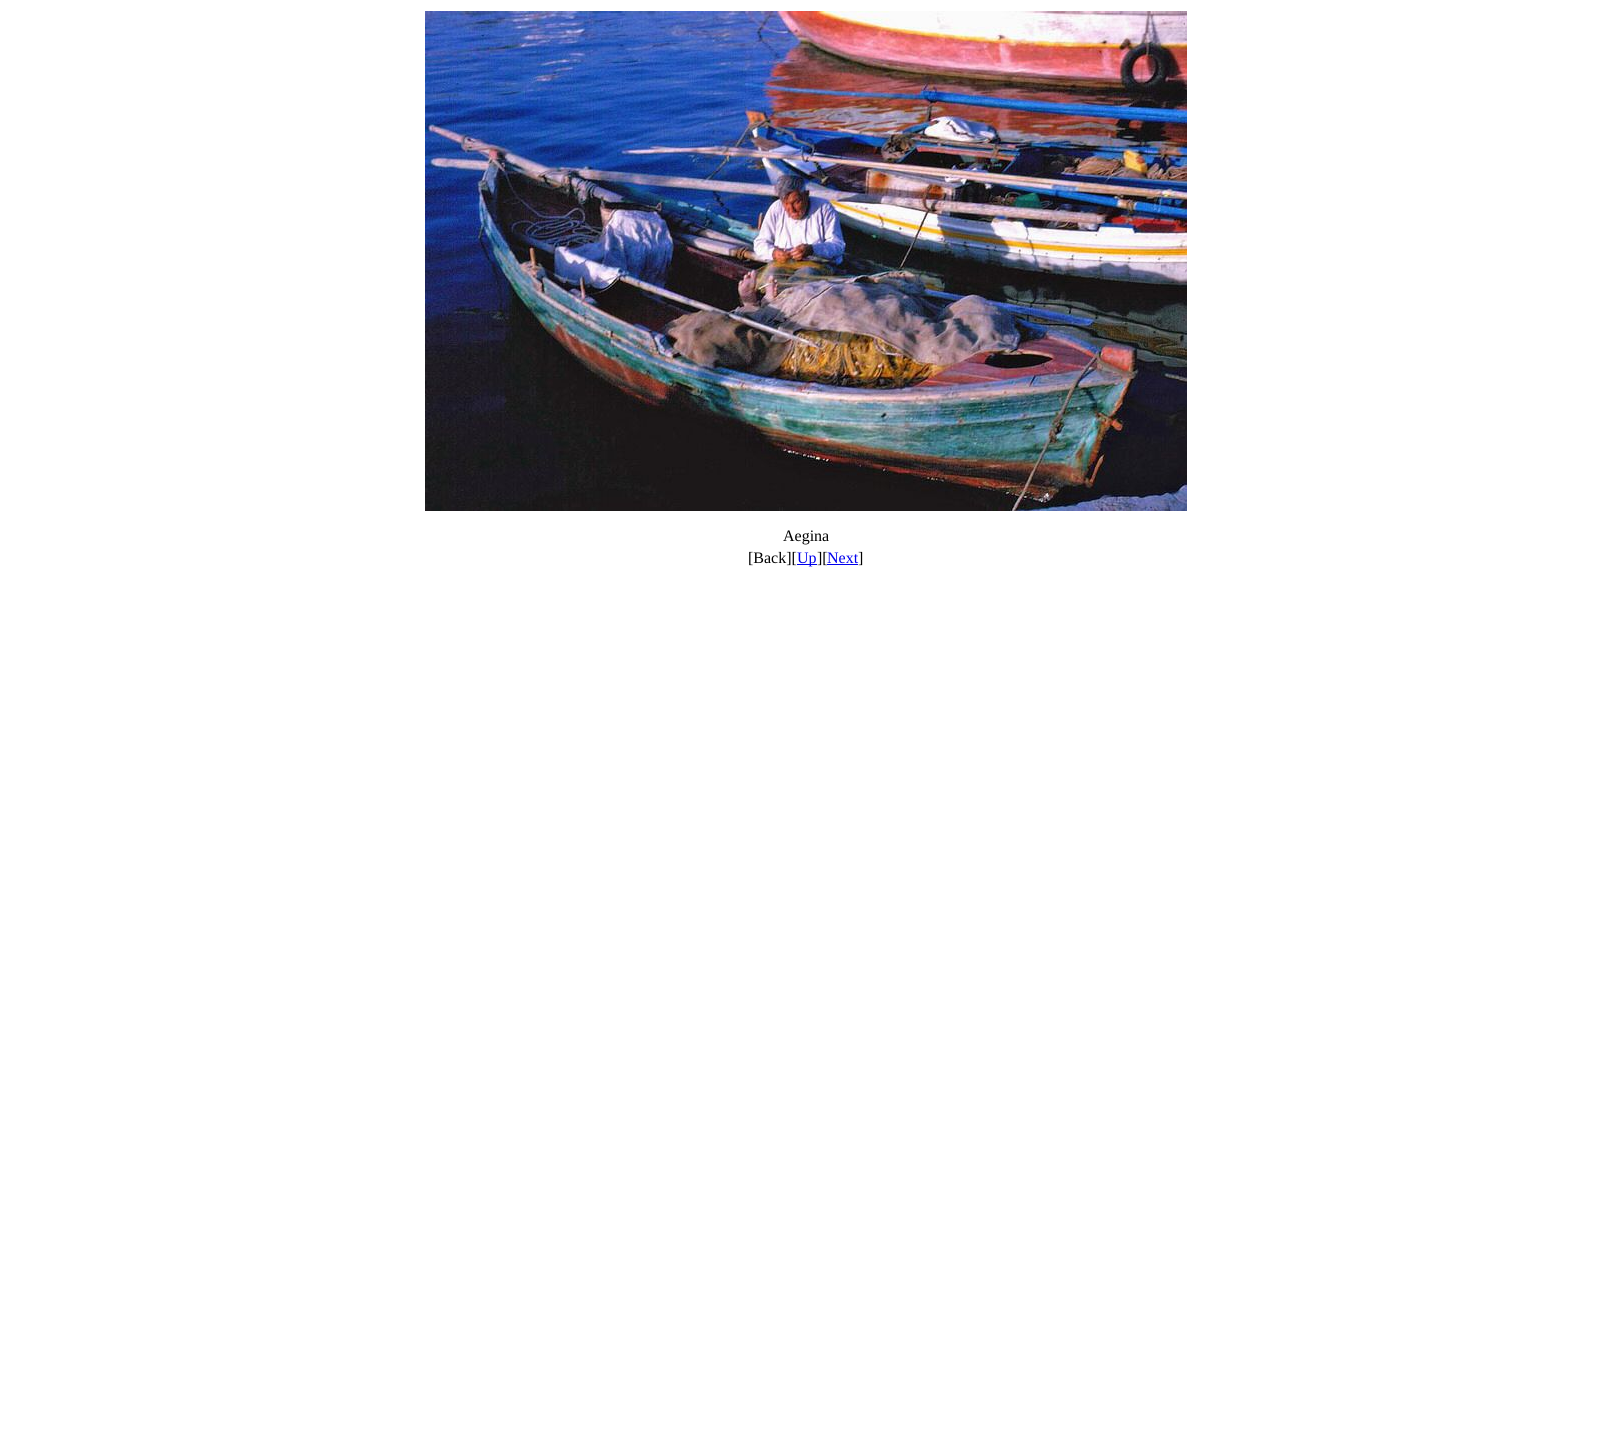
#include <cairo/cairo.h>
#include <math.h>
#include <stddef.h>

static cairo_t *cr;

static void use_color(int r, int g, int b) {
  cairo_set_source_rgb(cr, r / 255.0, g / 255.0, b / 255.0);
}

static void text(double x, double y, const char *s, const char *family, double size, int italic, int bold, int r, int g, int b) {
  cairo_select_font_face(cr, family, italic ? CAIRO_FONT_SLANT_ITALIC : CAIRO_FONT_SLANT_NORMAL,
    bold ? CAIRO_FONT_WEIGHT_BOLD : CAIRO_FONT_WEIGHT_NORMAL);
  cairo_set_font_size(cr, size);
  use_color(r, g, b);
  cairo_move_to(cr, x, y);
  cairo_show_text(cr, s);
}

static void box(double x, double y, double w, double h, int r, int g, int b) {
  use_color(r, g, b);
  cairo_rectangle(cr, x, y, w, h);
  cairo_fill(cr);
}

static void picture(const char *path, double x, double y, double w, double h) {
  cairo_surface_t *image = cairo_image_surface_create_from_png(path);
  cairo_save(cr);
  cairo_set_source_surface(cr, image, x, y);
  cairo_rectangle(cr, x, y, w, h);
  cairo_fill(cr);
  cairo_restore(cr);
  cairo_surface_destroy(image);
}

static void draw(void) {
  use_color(255, 255, 255);
  cairo_paint(cr);
  picture("img_01.png", 425, 11, 762, 500);
  box(797, 564, 20, 1, 0, 0, 238);
  box(827, 564, 31, 1, 0, 0, 238);
  text(783, 541, "Aegina", "Liberation Serif", 16, 0, 0, 0, 0, 0);
  text(748, 563, "[Back][", "Liberation Serif", 16, 0, 0, 0, 0, 0);
  text(797, 563, "Up", "Liberation Serif", 16, 0, 0, 0, 0, 238);
  text(817, 563, "][", "Liberation Serif", 16, 0, 0, 0, 0, 0);
  text(827, 563, "Next", "Liberation Serif", 16, 0, 0, 0, 0, 238);
  text(858, 563, "]", "Liberation Serif", 16, 0, 0, 0, 0, 0);
}

int main(void) {
  cairo_surface_t *surface = cairo_image_surface_create(CAIRO_FORMAT_RGB24, 1612, 1447);
  cr = cairo_create(surface);
  cairo_font_options_t *options = cairo_font_options_create();
  cairo_font_options_set_hint_metrics(options, CAIRO_HINT_METRICS_OFF);
  cairo_font_options_set_hint_style(options, CAIRO_HINT_STYLE_NONE);
  cairo_set_font_options(cr, options);
  cairo_set_miter_limit(cr, 4);
  draw();
  cairo_surface_write_to_png(surface, "out.png");
  cairo_font_options_destroy(options);
  cairo_destroy(cr);
  cairo_surface_destroy(surface);
  return 0;
}
